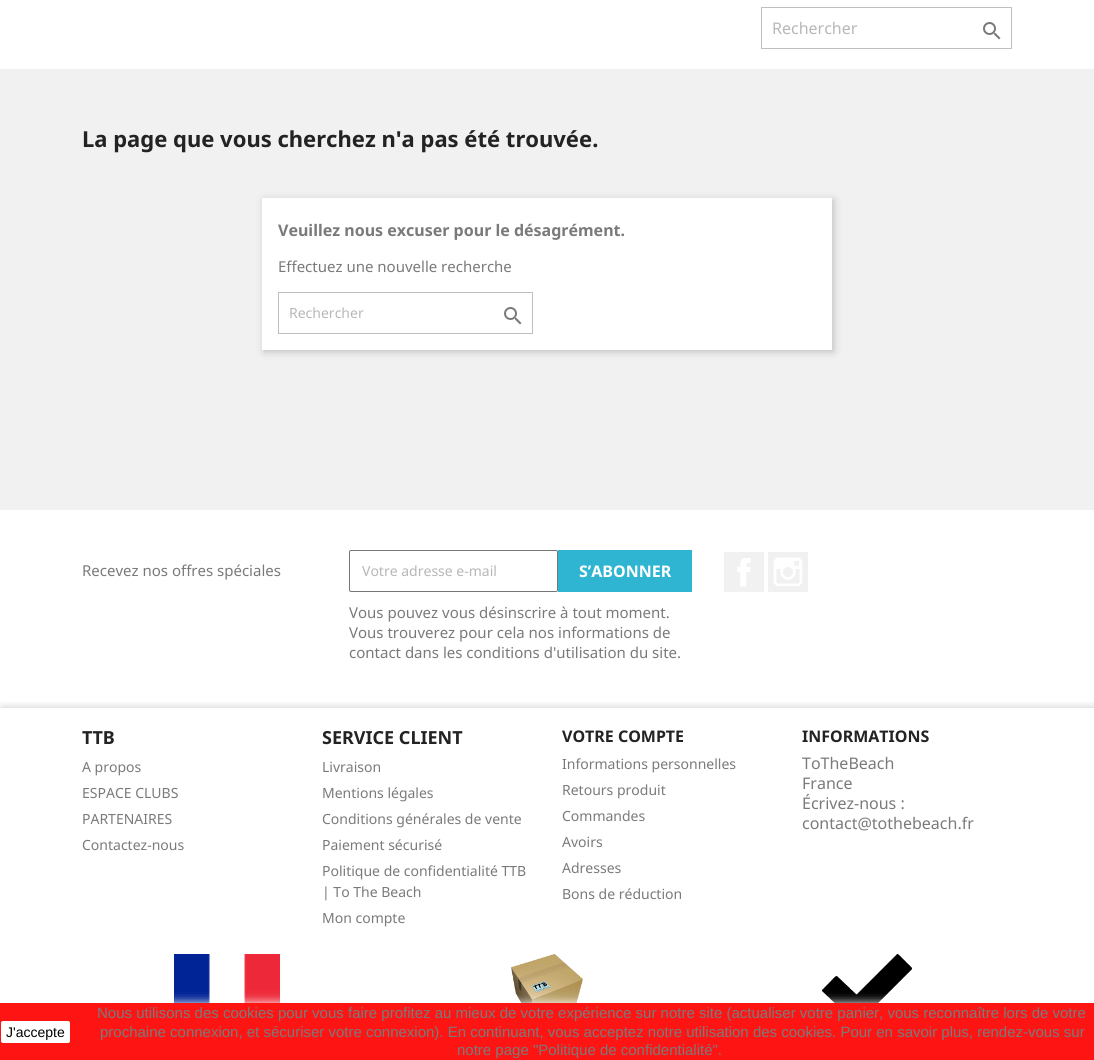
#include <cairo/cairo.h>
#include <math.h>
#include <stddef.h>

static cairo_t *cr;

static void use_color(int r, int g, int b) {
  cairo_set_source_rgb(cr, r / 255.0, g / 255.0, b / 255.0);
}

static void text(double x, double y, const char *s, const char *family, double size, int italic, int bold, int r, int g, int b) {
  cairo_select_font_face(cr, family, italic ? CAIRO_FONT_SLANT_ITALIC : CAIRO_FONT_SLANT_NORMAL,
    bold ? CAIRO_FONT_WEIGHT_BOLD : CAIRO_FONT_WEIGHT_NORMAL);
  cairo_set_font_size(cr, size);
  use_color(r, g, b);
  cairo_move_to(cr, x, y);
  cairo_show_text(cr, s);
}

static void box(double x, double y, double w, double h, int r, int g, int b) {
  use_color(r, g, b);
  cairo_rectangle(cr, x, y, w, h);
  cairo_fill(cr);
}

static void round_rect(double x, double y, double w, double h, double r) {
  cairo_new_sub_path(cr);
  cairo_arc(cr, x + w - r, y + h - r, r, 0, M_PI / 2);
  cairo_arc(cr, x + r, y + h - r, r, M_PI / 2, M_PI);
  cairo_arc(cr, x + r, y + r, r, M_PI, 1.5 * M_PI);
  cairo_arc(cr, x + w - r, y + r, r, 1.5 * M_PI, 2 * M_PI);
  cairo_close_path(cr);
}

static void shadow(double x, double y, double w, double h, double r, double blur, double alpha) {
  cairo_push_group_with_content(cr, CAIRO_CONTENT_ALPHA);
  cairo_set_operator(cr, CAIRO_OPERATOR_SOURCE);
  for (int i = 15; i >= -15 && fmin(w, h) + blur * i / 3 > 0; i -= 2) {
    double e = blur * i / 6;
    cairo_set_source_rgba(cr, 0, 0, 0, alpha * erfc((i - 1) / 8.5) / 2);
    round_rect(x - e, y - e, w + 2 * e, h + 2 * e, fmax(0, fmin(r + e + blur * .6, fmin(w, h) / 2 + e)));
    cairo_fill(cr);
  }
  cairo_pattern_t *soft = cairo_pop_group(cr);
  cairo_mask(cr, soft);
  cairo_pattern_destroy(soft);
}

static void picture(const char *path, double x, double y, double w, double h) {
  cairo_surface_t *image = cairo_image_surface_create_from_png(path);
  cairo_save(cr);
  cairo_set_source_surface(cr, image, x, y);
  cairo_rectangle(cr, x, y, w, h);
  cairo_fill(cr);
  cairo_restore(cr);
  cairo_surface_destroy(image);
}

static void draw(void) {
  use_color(255, 255, 255);
  cairo_paint(cr);
  cairo_rectangle(cr, 761.5, 7.5, 250, 41);
  use_color(191, 191, 191);
  cairo_set_line_width(cr, 1);
  cairo_stroke(cr);
  picture("img_01.png", 983, 22, 18, 18);
  box(0, 69, 1094, 441, 241, 241, 241);
  use_color(0, 0, 0);
  shadow(264, 200, 570, 152, 0, 4, 0.2);
  box(262, 198, 570, 152, 255, 255, 255);
  cairo_rectangle(cr, 278.5, 292.5, 254, 41);
  use_color(191, 191, 191);
  cairo_stroke(cr);
  picture("img_01.png", 504, 307, 18, 18);
  round_rect(349.5, 550.5, 208, 41, 1.5);
  use_color(118, 118, 118);
  cairo_stroke(cr);
  box(558, 550, 134, 42, 47, 181, 210);
  box(724, 552, 40, 40, 241, 241, 241);
  picture("img_02.png", 737, 558, 14, 29);
  box(768, 552, 40, 40, 241, 241, 241);
  picture("img_03.png", 773, 557, 30, 29);
  cairo_save(cr);
  cairo_rectangle(cr, 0, 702, 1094, 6);
  cairo_clip(cr);
  use_color(0, 0, 0);
  shadow(2, 710, 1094, 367, 0, 5.5, 0.3);
  cairo_restore(cr);
  picture("img_04.png", 174, 954, 106, 49);
  picture("img_05.png", 511, 954, 72, 49);
  picture("img_06.png", 822, 954, 90, 49);
  use_color(255, 255, 255);
  shadow(0, 1003, 1094, 57, 0, 5, 1);
  box(0, 1003, 1094, 57, 255, 20, 20);
  use_color(255, 255, 255);
  round_rect(1, 1021, 69, 22, 2);
  cairo_fill(cr);
  text(772, 34, "Rechercher", "Noto Sans", 16, 0, 0, 183, 183, 183);
  text(82, 147, "La page que vous cherchez n'a pas été trouvée.", "Noto Sans", 22, 0, 1, 35, 35, 35);
  text(278, 236, "Veuillez nous excuser pour le désagrément.", "Noto Sans", 16, 0, 1, 122, 122, 122);
  text(278, 272, "Effectuez une nouvelle recherche", "Noto Sans", 15, 0, 0, 122, 122, 122);
  text(289, 318, "Rechercher", "Noto Sans", 14, 0, 0, 183, 183, 183);
  text(82, 576, "Recevez nos offres spéciales", "Noto Sans", 15, 0, 0, 122, 122, 122);
  text(362, 576, "Votre adresse e-mail", "Noto Sans", 14, 0, 0, 183, 183, 183);
  text(579, 577, "S’ABONNER", "Noto Sans", 16, 0, 1, 255, 255, 255);
  text(349, 618, "Vous pouvez vous désinscrire à tout moment.", "Noto Sans", 15, 0, 0, 122, 122, 122);
  text(349, 638, "Vous trouverez pour cela nos informations de", "Noto Sans", 15, 0, 0, 122, 122, 122);
  text(349, 658, "contact dans les conditions d'utilisation du site.", "Noto Sans", 15, 0, 0, 122, 122, 122);
  text(82, 744, "TTB", "Noto Sans", 18, 0, 1, 35, 35, 35);
  text(82, 772, "A propos", "Noto Sans", 14, 0, 0, 122, 122, 122);
  text(82, 798, "ESPACE CLUBS", "Noto Sans", 14, 0, 0, 122, 122, 122);
  text(82, 824, "PARTENAIRES", "Noto Sans", 14, 0, 0, 122, 122, 122);
  text(82, 850, "Contactez-nous", "Noto Sans", 14, 0, 0, 122, 122, 122);
  text(322, 744, "SERVICE CLIENT", "Noto Sans", 18, 0, 1, 35, 35, 35);
  text(322, 772, "Livraison", "Noto Sans", 14, 0, 0, 122, 122, 122);
  text(322, 798, "Mentions légales", "Noto Sans", 14, 0, 0, 122, 122, 122);
  text(322, 824, "Conditions générales de vente", "Noto Sans", 14, 0, 0, 122, 122, 122);
  text(322, 850, "Paiement sécurisé", "Noto Sans", 14, 0, 0, 122, 122, 122);
  text(322, 876, "Politique de confidentialité TTB", "Noto Sans", 14, 0, 0, 122, 122, 122);
  text(322, 897, "| To The Beach", "Noto Sans", 14, 0, 0, 122, 122, 122);
  text(322, 923, "Mon compte", "Noto Sans", 14, 0, 0, 122, 122, 122);
  text(562, 742, "VOTRE COMPTE", "Noto Sans", 16, 0, 1, 35, 35, 35);
  text(562, 769, "Informations personnelles", "Noto Sans", 14, 0, 0, 122, 122, 122);
  text(562, 795, "Retours produit", "Noto Sans", 14, 0, 0, 122, 122, 122);
  text(562, 821, "Commandes", "Noto Sans", 14, 0, 0, 122, 122, 122);
  text(562, 847, "Avoirs", "Noto Sans", 14, 0, 0, 122, 122, 122);
  text(562, 873, "Adresses", "Noto Sans", 14, 0, 0, 122, 122, 122);
  text(562, 899, "Bons de réduction", "Noto Sans", 14, 0, 0, 122, 122, 122);
  text(802, 742, "INFORMATIONS", "Noto Sans", 16, 0, 1, 35, 35, 35);
  text(802, 769, "ToTheBeach", "Noto Sans", 16, 0, 0, 122, 122, 122);
  text(802, 789, "France", "Noto Sans", 16, 0, 0, 122, 122, 122);
  text(802, 809, "Écrivez-nous :", "Noto Sans", 16, 0, 0, 122, 122, 122);
  text(802, 829, "contact@tothebeach.fr", "Noto Sans", 16, 0, 0, 122, 122, 122);
  text(6, 1037, "J'accepte", "Liberation Sans", 14, 0, 0, 0, 0, 0);
  text(97, 1018, "Nous utilisons des cookies pour vous faire profitez au mieux de votre expérience sur notre site (actualiser votre panier, vous reconnaître lors de votre", "Liberation Sans", 15, 0, 0, 122, 122, 122);
  text(100, 1037, "prochaine connexion, et sécuriser votre connexion). En continuant, vous acceptez notre utilisation des cookies. Pour en savoir plus, rendez-vous sur", "Liberation Sans", 15, 0, 0, 122, 122, 122);
  text(457, 1055, "notre page \"Politique de confidentialité\".", "Liberation Sans", 15, 0, 0, 122, 122, 122);
}

int main(void) {
  cairo_surface_t *surface = cairo_image_surface_create(CAIRO_FORMAT_RGB24, 1094, 1060);
  cr = cairo_create(surface);
  cairo_font_options_t *options = cairo_font_options_create();
  cairo_font_options_set_hint_metrics(options, CAIRO_HINT_METRICS_OFF);
  cairo_font_options_set_hint_style(options, CAIRO_HINT_STYLE_NONE);
  cairo_set_font_options(cr, options);
  cairo_set_miter_limit(cr, 4);
  draw();
  cairo_surface_write_to_png(surface, "out.png");
  cairo_font_options_destroy(options);
  cairo_destroy(cr);
  cairo_surface_destroy(surface);
  return 0;
}
